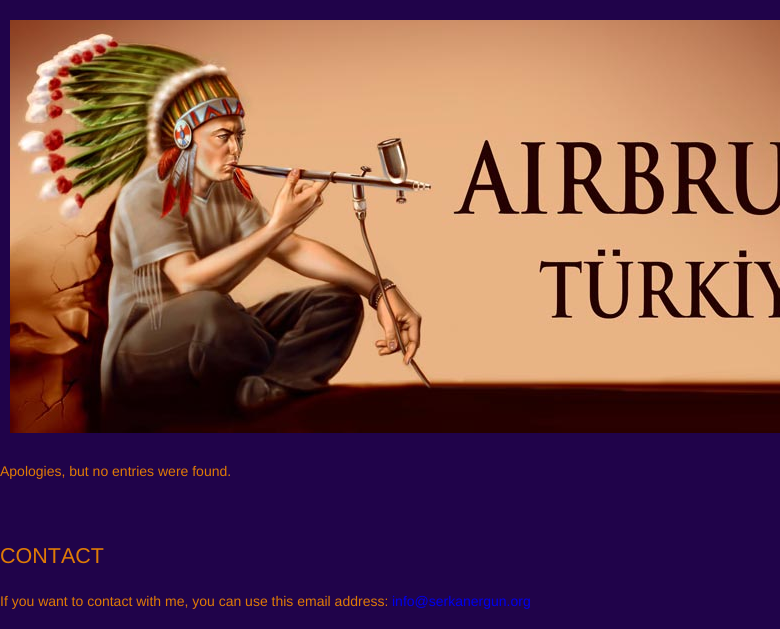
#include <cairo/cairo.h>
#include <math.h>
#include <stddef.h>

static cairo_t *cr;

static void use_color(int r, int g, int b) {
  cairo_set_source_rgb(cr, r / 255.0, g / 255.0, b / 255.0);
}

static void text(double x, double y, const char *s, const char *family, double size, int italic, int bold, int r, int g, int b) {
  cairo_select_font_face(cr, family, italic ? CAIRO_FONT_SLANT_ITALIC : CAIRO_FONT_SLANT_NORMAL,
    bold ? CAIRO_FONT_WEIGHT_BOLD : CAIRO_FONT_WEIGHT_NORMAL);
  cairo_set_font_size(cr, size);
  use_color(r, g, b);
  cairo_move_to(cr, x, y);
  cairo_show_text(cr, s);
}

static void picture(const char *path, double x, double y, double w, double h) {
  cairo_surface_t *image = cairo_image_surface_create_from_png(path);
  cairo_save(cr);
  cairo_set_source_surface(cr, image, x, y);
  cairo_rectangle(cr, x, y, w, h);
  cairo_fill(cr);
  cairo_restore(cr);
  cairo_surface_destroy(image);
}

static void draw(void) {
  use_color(32, 3, 74);
  cairo_paint(cr);
  picture("img_01.png", 10, 20, 770, 413);
  text(0, 476, "Apologies, but no entries were found.", "Liberation Sans", 14, 0, 0, 223, 123, 5);
  text(0, 563, "CONTACT", "Liberation Sans", 21.5, 0, 0, 223, 123, 5);
  text(0, 606, "If you want to contact with me, you can use this email address:", "Liberation Sans", 14, 0, 0, 223, 123, 5);
  text(392, 606, "info@serkanergun.org", "Liberation Sans", 14, 0, 0, 0, 0, 238);
}

int main(void) {
  cairo_surface_t *surface = cairo_image_surface_create(CAIRO_FORMAT_RGB24, 780, 629);
  cr = cairo_create(surface);
  cairo_font_options_t *options = cairo_font_options_create();
  cairo_font_options_set_hint_metrics(options, CAIRO_HINT_METRICS_OFF);
  cairo_font_options_set_hint_style(options, CAIRO_HINT_STYLE_NONE);
  cairo_set_font_options(cr, options);
  cairo_set_miter_limit(cr, 4);
  draw();
  cairo_surface_write_to_png(surface, "out.png");
  cairo_font_options_destroy(options);
  cairo_destroy(cr);
  cairo_surface_destroy(surface);
  return 0;
}
